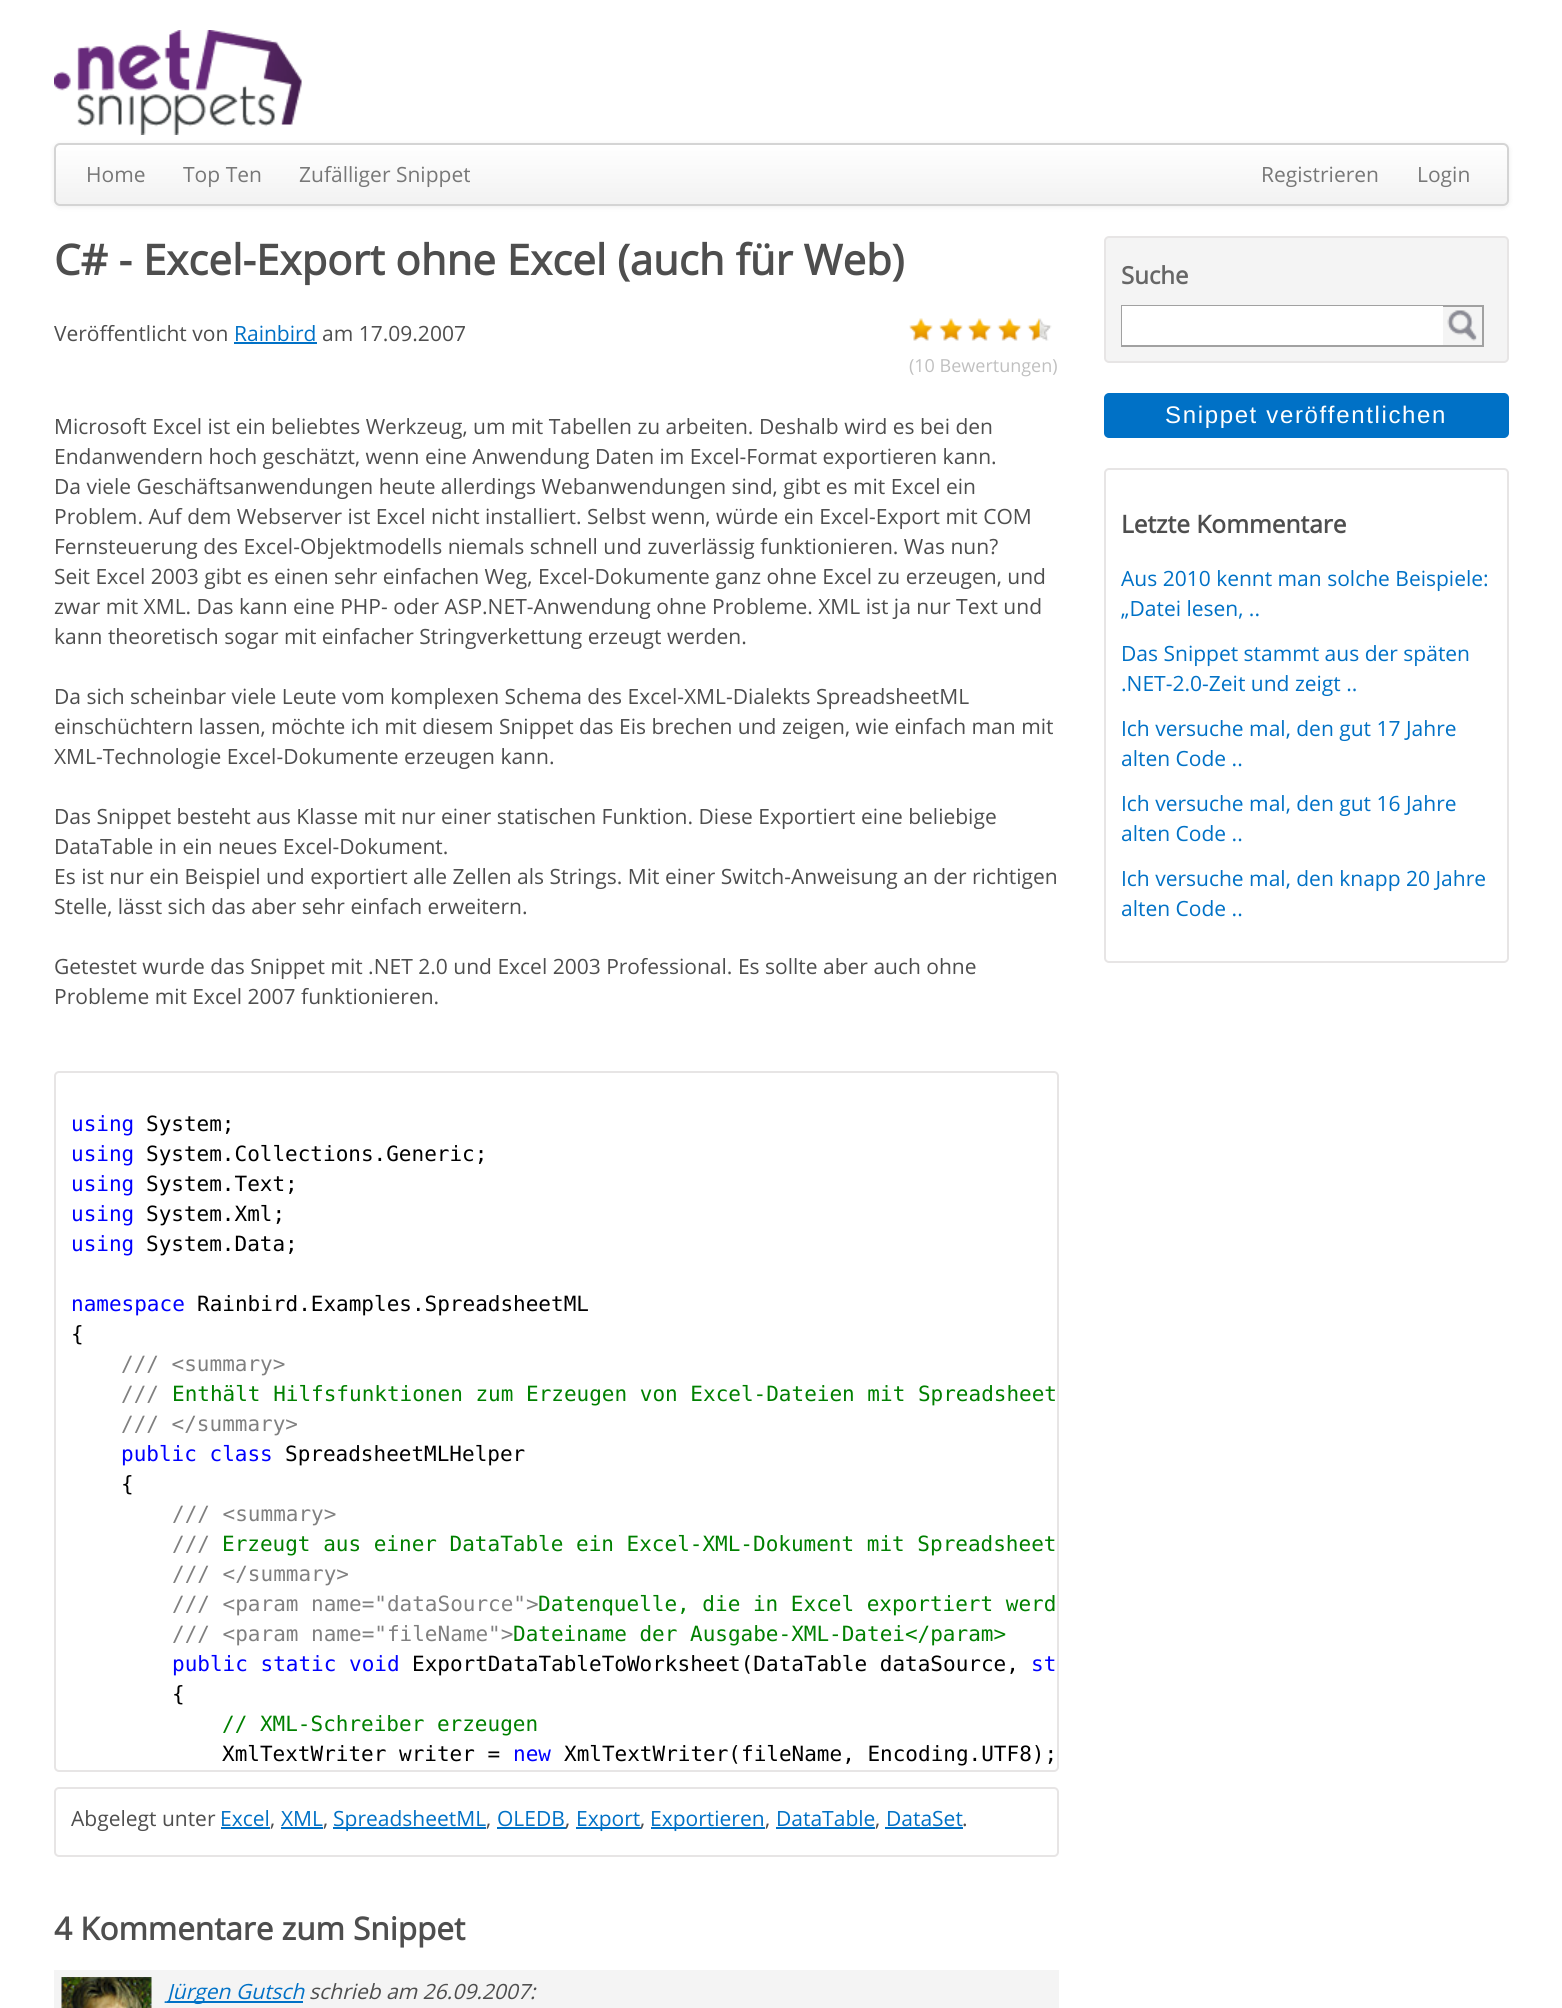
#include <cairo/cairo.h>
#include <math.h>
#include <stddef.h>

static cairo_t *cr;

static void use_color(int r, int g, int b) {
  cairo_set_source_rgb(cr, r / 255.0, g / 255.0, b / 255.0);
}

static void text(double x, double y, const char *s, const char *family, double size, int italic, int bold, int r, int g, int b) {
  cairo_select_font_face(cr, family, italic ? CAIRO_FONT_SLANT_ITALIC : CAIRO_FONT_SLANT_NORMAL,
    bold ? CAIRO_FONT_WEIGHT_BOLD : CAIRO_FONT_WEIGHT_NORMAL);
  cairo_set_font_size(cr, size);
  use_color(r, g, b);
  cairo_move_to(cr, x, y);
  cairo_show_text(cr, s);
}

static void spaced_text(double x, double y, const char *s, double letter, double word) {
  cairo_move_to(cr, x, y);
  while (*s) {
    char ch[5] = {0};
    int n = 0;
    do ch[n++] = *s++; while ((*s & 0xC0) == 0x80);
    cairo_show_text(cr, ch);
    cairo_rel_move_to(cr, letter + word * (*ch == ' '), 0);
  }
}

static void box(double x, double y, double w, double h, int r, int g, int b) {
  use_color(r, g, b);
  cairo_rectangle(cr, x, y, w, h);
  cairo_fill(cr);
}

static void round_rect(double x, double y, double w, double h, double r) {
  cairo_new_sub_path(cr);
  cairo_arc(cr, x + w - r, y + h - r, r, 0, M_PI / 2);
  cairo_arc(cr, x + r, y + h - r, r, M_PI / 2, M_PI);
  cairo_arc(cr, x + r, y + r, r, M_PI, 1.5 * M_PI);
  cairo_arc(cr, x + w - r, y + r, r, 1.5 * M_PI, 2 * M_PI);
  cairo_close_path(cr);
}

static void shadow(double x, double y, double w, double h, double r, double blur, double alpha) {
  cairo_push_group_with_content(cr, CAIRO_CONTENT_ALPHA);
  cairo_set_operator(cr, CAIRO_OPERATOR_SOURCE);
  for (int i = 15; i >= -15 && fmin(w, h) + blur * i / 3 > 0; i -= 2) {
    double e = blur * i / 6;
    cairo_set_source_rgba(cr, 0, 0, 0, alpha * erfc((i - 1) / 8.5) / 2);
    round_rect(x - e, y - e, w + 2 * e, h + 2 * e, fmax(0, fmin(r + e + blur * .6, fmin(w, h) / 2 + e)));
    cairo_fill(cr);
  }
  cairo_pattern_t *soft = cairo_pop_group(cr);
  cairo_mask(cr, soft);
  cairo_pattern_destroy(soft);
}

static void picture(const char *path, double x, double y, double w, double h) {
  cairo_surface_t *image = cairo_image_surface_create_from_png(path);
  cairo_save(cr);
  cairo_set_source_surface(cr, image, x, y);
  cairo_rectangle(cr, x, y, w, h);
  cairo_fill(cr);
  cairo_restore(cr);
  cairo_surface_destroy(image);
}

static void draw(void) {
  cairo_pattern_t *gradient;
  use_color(255, 255, 255);
  cairo_paint(cr);
  use_color(0, 0, 0);
  shadow(54, 144, 1455, 63, 6, 3, 0.07);
  picture("img_01.png", 54, 30, 248, 105);
  cairo_save(cr);
  round_rect(54, 143, 1455, 63, 6);
  cairo_clip(cr);
  gradient = cairo_pattern_create_linear(782, 144, 782, 204);
  cairo_pattern_add_color_stop_rgba(gradient, 0, 1, 1, 1, 1);
  cairo_pattern_add_color_stop_rgba(gradient, 1, 0.949, 0.949, 0.949, 1);
  cairo_set_source(cr, gradient);
  cairo_pattern_destroy(gradient);
  cairo_rectangle(cr, 54, 144, 1455, 60);
  cairo_fill(cr);
  cairo_restore(cr);
  round_rect(55, 144, 1453, 61, 5);
  use_color(212, 212, 212);
  cairo_stroke(cr);
  box(234, 342, 83, 2, 0, 113, 198);
  picture("img_02.png", 909, 318, 24, 23);
  picture("img_02.png", 939, 318, 24, 23);
  picture("img_03.png", 967, 318, 25, 23);
  picture("img_03.png", 997, 318, 25, 23);
  picture("img_04.png", 1027, 318, 25, 23);
  round_rect(55, 1072, 1003, 699, 4);
  use_color(231, 229, 229);
  cairo_stroke(cr);
  round_rect(55, 1788, 1003, 68, 4);
  cairo_stroke(cr);
  box(221, 1827, 49, 2, 0, 113, 198);
  box(281, 1827, 42, 2, 0, 113, 198);
  box(333, 1827, 153, 2, 0, 113, 198);
  box(497, 1827, 69, 2, 0, 113, 198);
  box(576, 1827, 65, 2, 0, 113, 198);
  box(651, 1827, 114, 2, 0, 113, 198);
  box(776, 1827, 99, 2, 0, 113, 198);
  box(885, 1827, 78, 2, 0, 113, 198);
  box(54, 1970, 1005, 38, 244, 244, 244);
  picture("img_05.png", 61, 1977, 91, 31);
  box(167, 2001, 136, 2, 0, 113, 198);
  use_color(244, 244, 244);
  round_rect(1105, 237, 403, 125, 4);
  cairo_fill_preserve(cr);
  use_color(231, 229, 229);
  cairo_stroke(cr);
  cairo_rectangle(cr, 1122, 306, 361, 40);
  use_color(161, 161, 161);
  cairo_stroke(cr);
  box(1122, 306, 321, 39, 255, 255, 255);
  picture("img_06.png", 1447, 310, 30, 31);
  use_color(0, 113, 198);
  round_rect(1105, 394, 403, 43, 4);
  cairo_fill_preserve(cr);
  cairo_stroke(cr);
  round_rect(1105, 469, 403, 493, 4);
  use_color(231, 229, 229);
  cairo_stroke(cr);
  text(86, 182, "Home", "Open Sans", 21, 0, 0, 119, 119, 119);
  text(183, 182, "Top Ten", "Open Sans", 21, 0, 0, 119, 119, 119);
  text(299, 182, "Zufälliger Snippet", "Open Sans", 21, 0, 0, 119, 119, 119);
  text(1261, 182, "Registrieren", "Open Sans", 21, 0, 0, 119, 119, 119);
  text(1417, 182, "Login", "Open Sans", 21, 0, 0, 119, 119, 119);
  text(54, 275, "C# - Excel-Export ohne Excel (auch für Web)", "Open Sans", 42, 0, 1, 78, 78, 78);
  text(54, 341, "Veröffentlicht von", "Open Sans", 21, 0, 0, 78, 78, 78);
  text(234, 341, "Rainbird", "Open Sans", 21, 0, 0, 0, 113, 198);
  text(322, 341, "am 17.09.2007", "Open Sans", 21, 0, 0, 78, 78, 78);
  text(909, 372, "(10 Bewertungen)", "Open Sans", 18, 0, 0, 192, 192, 192);
  text(54, 434, "Microsoft Excel ist ein beliebtes Werkzeug, um mit Tabellen zu arbeiten. Deshalb wird es bei den", "Open Sans", 21, 0, 0, 78, 78, 78);
  text(54, 464, "Endanwendern hoch geschätzt, wenn eine Anwendung Daten im Excel-Format exportieren kann.", "Open Sans", 21, 0, 0, 78, 78, 78);
  text(54, 494, "Da viele Geschäftsanwendungen heute allerdings Webanwendungen sind, gibt es mit Excel ein", "Open Sans", 21, 0, 0, 78, 78, 78);
  text(54, 524, "Problem. Auf dem Webserver ist Excel nicht installiert. Selbst wenn, würde ein Excel-Export mit COM", "Open Sans", 21, 0, 0, 78, 78, 78);
  text(54, 554, "Fernsteuerung des Excel-Objektmodells niemals schnell und zuverlässig funktionieren. Was nun?", "Open Sans", 21, 0, 0, 78, 78, 78);
  text(54, 584, "Seit Excel 2003 gibt es einen sehr einfachen Weg, Excel-Dokumente ganz ohne Excel zu erzeugen, und", "Open Sans", 21, 0, 0, 78, 78, 78);
  text(54, 614, "zwar mit XML. Das kann eine PHP- oder ASP.NET-Anwendung ohne Probleme. XML ist ja nur Text und", "Open Sans", 21, 0, 0, 78, 78, 78);
  text(54, 644, "kann theoretisch sogar mit einfacher Stringverkettung erzeugt werden.", "Open Sans", 21, 0, 0, 78, 78, 78);
  text(54, 704, "Da sich scheinbar viele Leute vom komplexen Schema des Excel-XML-Dialekts SpreadsheetML", "Open Sans", 21, 0, 0, 78, 78, 78);
  text(54, 734, "einschüchtern lassen, möchte ich mit diesem Snippet das Eis brechen und zeigen, wie einfach man mit", "Open Sans", 21, 0, 0, 78, 78, 78);
  text(54, 764, "XML-Technologie Excel-Dokumente erzeugen kann.", "Open Sans", 21, 0, 0, 78, 78, 78);
  text(54, 824, "Das Snippet besteht aus Klasse mit nur einer statischen Funktion. Diese Exportiert eine beliebige", "Open Sans", 21, 0, 0, 78, 78, 78);
  text(54, 854, "DataTable in ein neues Excel-Dokument.", "Open Sans", 21, 0, 0, 78, 78, 78);
  text(54, 884, "Es ist nur ein Beispiel und exportiert alle Zellen als Strings. Mit einer Switch-Anweisung an der richtigen", "Open Sans", 21, 0, 0, 78, 78, 78);
  text(54, 914, "Stelle, lässt sich das aber sehr einfach erweitern.", "Open Sans", 21, 0, 0, 78, 78, 78);
  text(54, 974, "Getestet wurde das Snippet mit .NET 2.0 und Excel 2003 Professional. Es sollte aber auch ohne", "Open Sans", 21, 0, 0, 78, 78, 78);
  text(54, 1004, "Probleme mit Excel 2007 funktionieren.", "Open Sans", 21, 0, 0, 78, 78, 78);
  text(71, 1131, "using", "DejaVu Sans Mono", 21, 0, 0, 0, 0, 255);
  text(146, 1131, "System;", "DejaVu Sans Mono", 21, 0, 0, 0, 0, 0);
  text(71, 1161, "using", "DejaVu Sans Mono", 21, 0, 0, 0, 0, 255);
  text(146, 1161, "System.Collections.Generic;", "DejaVu Sans Mono", 21, 0, 0, 0, 0, 0);
  text(71, 1191, "using", "DejaVu Sans Mono", 21, 0, 0, 0, 0, 255);
  text(146, 1191, "System.Text;", "DejaVu Sans Mono", 21, 0, 0, 0, 0, 0);
  text(71, 1221, "using", "DejaVu Sans Mono", 21, 0, 0, 0, 0, 255);
  text(146, 1221, "System.Xml;", "DejaVu Sans Mono", 21, 0, 0, 0, 0, 0);
  text(71, 1251, "using", "DejaVu Sans Mono", 21, 0, 0, 0, 0, 255);
  text(146, 1251, "System.Data;", "DejaVu Sans Mono", 21, 0, 0, 0, 0, 0);
  text(71, 1311, "namespace", "DejaVu Sans Mono", 21, 0, 0, 0, 0, 255);
  text(197, 1311, "Rainbird.Examples.SpreadsheetML", "DejaVu Sans Mono", 21, 0, 0, 0, 0, 0);
  text(71, 1341, "{", "DejaVu Sans Mono", 21, 0, 0, 0, 0, 0);
  text(121, 1371, "/// <summary>", "DejaVu Sans Mono", 21, 0, 0, 128, 128, 128);
  text(121, 1401, "///", "DejaVu Sans Mono", 21, 0, 0, 128, 128, 128);
  text(172, 1401, "Enthält Hilfsfunktionen zum Erzeugen von Excel-Dateien mit Spreadsheet", "DejaVu Sans Mono", 21, 0, 0, 0, 128, 0);
  text(121, 1431, "/// </summary>", "DejaVu Sans Mono", 21, 0, 0, 128, 128, 128);
  text(121, 1461, "public class", "DejaVu Sans Mono", 21, 0, 0, 0, 0, 255);
  text(285, 1461, "SpreadsheetMLHelper", "DejaVu Sans Mono", 21, 0, 0, 0, 0, 0);
  text(121, 1491, "{", "DejaVu Sans Mono", 21, 0, 0, 0, 0, 0);
  text(172, 1521, "/// <summary>", "DejaVu Sans Mono", 21, 0, 0, 128, 128, 128);
  text(172, 1551, "///", "DejaVu Sans Mono", 21, 0, 0, 128, 128, 128);
  text(222, 1551, "Erzeugt aus einer DataTable ein Excel-XML-Dokument mit Spreadsheet", "DejaVu Sans Mono", 21, 0, 0, 0, 128, 0);
  text(172, 1581, "/// </summary>", "DejaVu Sans Mono", 21, 0, 0, 128, 128, 128);
  text(172, 1611, "/// <param name=\"dataSource\">", "DejaVu Sans Mono", 21, 0, 0, 128, 128, 128);
  text(538, 1611, "Datenquelle, die in Excel exportiert werd", "DejaVu Sans Mono", 21, 0, 0, 0, 128, 0);
  text(172, 1641, "/// <param name=\"fileName\">", "DejaVu Sans Mono", 21, 0, 0, 128, 128, 128);
  text(513, 1641, "Dateiname der Ausgabe-XML-Datei</param>", "DejaVu Sans Mono", 21, 0, 0, 0, 128, 0);
  text(172, 1671, "public static void", "DejaVu Sans Mono", 21, 0, 0, 0, 0, 255);
  text(412, 1671, "ExportDataTableToWorksheet(DataTable dataSource,", "DejaVu Sans Mono", 21, 0, 0, 0, 0, 0);
  text(1031, 1671, "st", "DejaVu Sans Mono", 21, 0, 0, 0, 0, 255);
  text(172, 1701, "{", "DejaVu Sans Mono", 21, 0, 0, 0, 0, 0);
  text(222, 1731, "// XML-Schreiber erzeugen", "DejaVu Sans Mono", 21, 0, 0, 0, 128, 0);
  text(222, 1761, "XmlTextWriter writer =", "DejaVu Sans Mono", 21, 0, 0, 0, 0, 0);
  text(513, 1761, "new", "DejaVu Sans Mono", 21, 0, 0, 0, 0, 255);
  text(564, 1761, "XmlTextWriter(fileName, Encoding.UTF8);", "DejaVu Sans Mono", 21, 0, 0, 0, 0, 0);
  text(71, 1826, "Abgelegt unter", "Open Sans", 21, 0, 0, 78, 78, 78);
  text(220, 1826, "Excel", "Open Sans", 21, 0, 0, 0, 113, 198);
  text(270, 1826, ",", "Open Sans", 21, 0, 0, 78, 78, 78);
  text(281, 1826, "XML", "Open Sans", 21, 0, 0, 0, 113, 198);
  text(323, 1826, ",", "Open Sans", 21, 0, 0, 78, 78, 78);
  text(333, 1826, "SpreadsheetML", "Open Sans", 21, 0, 0, 0, 113, 198);
  text(486, 1826, ",", "Open Sans", 21, 0, 0, 78, 78, 78);
  text(497, 1826, "OLEDB", "Open Sans", 21, 0, 0, 0, 113, 198);
  text(565, 1826, ",", "Open Sans", 21, 0, 0, 78, 78, 78);
  text(576, 1826, "Export", "Open Sans", 21, 0, 0, 0, 113, 198);
  text(640, 1826, ",", "Open Sans", 21, 0, 0, 78, 78, 78);
  text(650, 1826, "Exportieren", "Open Sans", 21, 0, 0, 0, 113, 198);
  text(765, 1826, ",", "Open Sans", 21, 0, 0, 78, 78, 78);
  text(776, 1826, "DataTable", "Open Sans", 21, 0, 0, 0, 113, 198);
  text(875, 1826, ",", "Open Sans", 21, 0, 0, 78, 78, 78);
  text(886, 1826, "DataSet", "Open Sans", 21, 0, 0, 0, 113, 198);
  text(962, 1826, ".", "Open Sans", 21, 0, 0, 78, 78, 78);
  text(54, 1940, "4 Kommentare zum Snippet", "Open Sans", 31.5, 0, 1, 78, 78, 78);
  text(167, 1999, "Jürgen Gutsch", "Open Sans", 21, 1, 0, 0, 113, 198);
  text(309, 1999, "schrieb am 26.09.2007:", "Open Sans", 21, 1, 0, 78, 78, 78);
  text(1121, 284, "Suche", "Open Sans", 24, 0, 1, 102, 102, 102);
  cairo_select_font_face(cr, "Liberation Sans", CAIRO_FONT_SLANT_NORMAL, CAIRO_FONT_WEIGHT_NORMAL);
  use_color(255, 255, 255);
  spaced_text(1165, 423, "Snippet veröffentlichen", 1.65, 0);
  text(1121, 533, "Letzte Kommentare", "Open Sans", 24.5, 0, 1, 78, 78, 78);
  text(1121, 586, "Aus 2010 kennt man solche Beispiele:", "Open Sans", 21, 0, 0, 0, 113, 198);
  text(1121, 616, "„Datei lesen, ..", "Open Sans", 21, 0, 0, 0, 113, 198);
  text(1121, 661, "Das Snippet stammt aus der späten", "Open Sans", 21, 0, 0, 0, 113, 198);
  text(1121, 691, ".NET-2.0-Zeit und zeigt ..", "Open Sans", 21, 0, 0, 0, 113, 198);
  text(1121, 736, "Ich versuche mal, den gut 17 Jahre", "Open Sans", 21, 0, 0, 0, 113, 198);
  text(1121, 766, "alten Code ..", "Open Sans", 21, 0, 0, 0, 113, 198);
  text(1121, 811, "Ich versuche mal, den gut 16 Jahre", "Open Sans", 21, 0, 0, 0, 113, 198);
  text(1121, 841, "alten Code ..", "Open Sans", 21, 0, 0, 0, 113, 198);
  text(1121, 886, "Ich versuche mal, den knapp 20 Jahre", "Open Sans", 21, 0, 0, 0, 113, 198);
  text(1121, 916, "alten Code ..", "Open Sans", 21, 0, 0, 0, 113, 198);
}

int main(void) {
  cairo_surface_t *surface = cairo_image_surface_create(CAIRO_FORMAT_RGB24, 1562, 2008);
  cr = cairo_create(surface);
  cairo_font_options_t *options = cairo_font_options_create();
  cairo_font_options_set_hint_metrics(options, CAIRO_HINT_METRICS_OFF);
  cairo_font_options_set_hint_style(options, CAIRO_HINT_STYLE_NONE);
  cairo_set_font_options(cr, options);
  cairo_set_miter_limit(cr, 4);
  draw();
  cairo_surface_write_to_png(surface, "out.png");
  cairo_font_options_destroy(options);
  cairo_destroy(cr);
  cairo_surface_destroy(surface);
  return 0;
}
